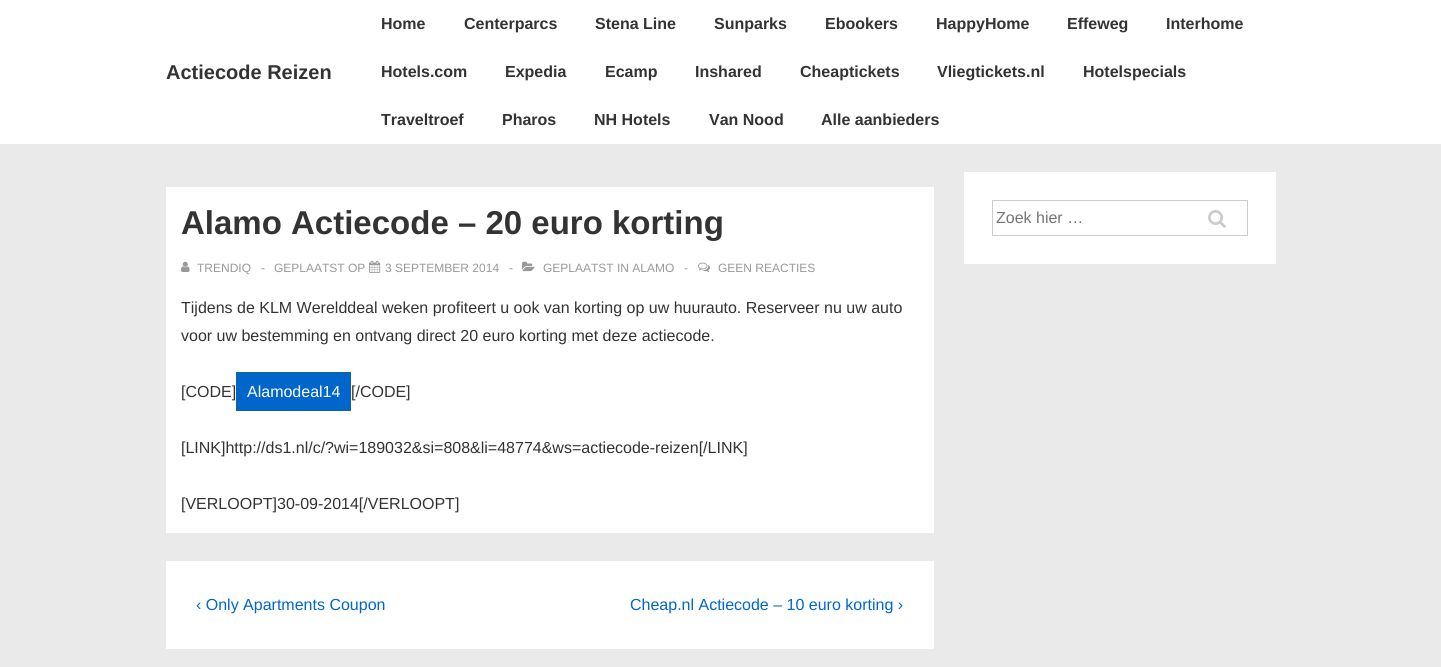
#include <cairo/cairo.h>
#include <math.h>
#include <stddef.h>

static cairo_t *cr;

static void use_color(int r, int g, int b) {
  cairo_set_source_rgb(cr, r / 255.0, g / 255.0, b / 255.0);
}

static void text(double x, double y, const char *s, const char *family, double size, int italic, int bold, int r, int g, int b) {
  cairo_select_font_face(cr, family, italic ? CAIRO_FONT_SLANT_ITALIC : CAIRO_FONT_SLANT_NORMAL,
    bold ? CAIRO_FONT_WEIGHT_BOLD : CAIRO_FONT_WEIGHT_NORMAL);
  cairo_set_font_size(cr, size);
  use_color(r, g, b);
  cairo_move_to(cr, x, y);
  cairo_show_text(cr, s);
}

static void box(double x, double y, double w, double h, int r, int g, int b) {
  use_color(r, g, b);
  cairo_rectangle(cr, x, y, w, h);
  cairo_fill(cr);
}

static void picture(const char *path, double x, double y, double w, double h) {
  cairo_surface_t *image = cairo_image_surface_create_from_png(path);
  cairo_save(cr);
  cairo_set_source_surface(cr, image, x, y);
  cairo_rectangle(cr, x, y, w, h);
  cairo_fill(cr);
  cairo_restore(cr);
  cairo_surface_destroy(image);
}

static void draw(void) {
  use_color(234, 234, 234);
  cairo_paint(cr);
  box(0, 0, 1441, 144, 255, 255, 255);
  box(166, 187, 768, 346, 255, 255, 255);
  picture("img_01.png", 181, 261, 9, 11);
  picture("img_02.png", 369, 260, 12, 13);
  picture("img_03.png", 522, 261, 13, 11);
  picture("img_04.png", 698, 262, 12, 10);
  use_color(0, 102, 204);
  cairo_rectangle(cr, 236.5, 372.5, 114, 38);
  cairo_fill_preserve(cr);
  use_color(16, 101, 156);
  cairo_set_line_width(cr, 1);
  cairo_stroke(cr);
  box(166, 561, 768, 88, 255, 255, 255);
  box(964, 172, 312, 92, 255, 255, 255);
  cairo_rectangle(cr, 992.5, 200.5, 255, 35);
  use_color(204, 204, 204);
  cairo_stroke(cr);
  picture("img_05.png", 1208, 210, 18, 18);
  text(166, 79, "Actiecode Reizen", "Liberation Sans", 20, 0, 1, 51, 51, 51);
  text(381, 29, "Home", "Liberation Sans", 16, 0, 1, 51, 51, 51);
  text(464, 29, "Centerparcs", "Liberation Sans", 16, 0, 1, 51, 51, 51);
  text(595, 29, "Stena Line", "Liberation Sans", 16, 0, 1, 51, 51, 51);
  text(714, 29, "Sunparks", "Liberation Sans", 16, 0, 1, 51, 51, 51);
  text(825, 29, "Ebookers", "Liberation Sans", 16, 0, 1, 51, 51, 51);
  text(936, 29, "HappyHome", "Liberation Sans", 16, 0, 1, 51, 51, 51);
  text(1067, 29, "Effeweg", "Liberation Sans", 16, 0, 1, 51, 51, 51);
  text(1166, 29, "Interhome", "Liberation Sans", 16, 0, 1, 51, 51, 51);
  text(381, 77, "Hotels.com", "Liberation Sans", 16, 0, 1, 51, 51, 51);
  text(505, 77, "Expedia", "Liberation Sans", 16, 0, 1, 51, 51, 51);
  text(605, 77, "Ecamp", "Liberation Sans", 16, 0, 1, 51, 51, 51);
  text(695, 77, "Inshared", "Liberation Sans", 16, 0, 1, 51, 51, 51);
  text(800, 77, "Cheaptickets", "Liberation Sans", 16, 0, 1, 51, 51, 51);
  text(937, 77, "Vliegtickets.nl", "Liberation Sans", 16, 0, 1, 51, 51, 51);
  text(1083, 77, "Hotelspecials", "Liberation Sans", 16, 0, 1, 51, 51, 51);
  text(381, 125, "Traveltroef", "Liberation Sans", 16, 0, 1, 51, 51, 51);
  text(502, 125, "Pharos", "Liberation Sans", 16, 0, 1, 51, 51, 51);
  text(594, 125, "NH Hotels", "Liberation Sans", 16, 0, 1, 51, 51, 51);
  text(709, 125, "Van Nood", "Liberation Sans", 16, 0, 1, 51, 51, 51);
  text(821, 125, "Alle aanbieders", "Liberation Sans", 16, 0, 1, 51, 51, 51);
  text(181, 234, "Alamo Actiecode – 20 euro korting", "Liberation Sans", 33, 0, 1, 51, 51, 51);
  text(197, 272, "TRENDIQ", "Liberation Sans", 12, 0, 0, 153, 153, 153);
  text(261, 272, "-", "Liberation Sans", 12, 0, 0, 153, 153, 153);
  text(274, 272, "GEPLAATST OP", "Liberation Sans", 12, 0, 0, 153, 153, 153);
  text(385, 272, "3 SEPTEMBER 2014", "Liberation Sans", 12, 0, 0, 153, 153, 153);
  text(509, 272, "-", "Liberation Sans", 12, 0, 0, 153, 153, 153);
  text(543, 272, "GEPLAATST IN ALAMO", "Liberation Sans", 12, 0, 0, 153, 153, 153);
  text(684, 272, "-", "Liberation Sans", 12, 0, 0, 153, 153, 153);
  text(718, 272, "GEEN REACTIES", "Liberation Sans", 12, 0, 0, 153, 153, 153);
  text(181, 313, "Tijdens de KLM Werelddeal weken profiteert u ook van korting op uw huurauto. Reserveer nu uw auto", "Liberation Sans", 16, 0, 0, 51, 51, 51);
  text(181, 341, "voor uw bestemming en ontvang direct 20 euro korting met deze actiecode.", "Liberation Sans", 16, 0, 0, 51, 51, 51);
  text(181, 397, "[CODE]", "Liberation Sans", 16, 0, 0, 51, 51, 51);
  text(247, 397, "Alamodeal14", "Liberation Sans", 16, 0, 0, 255, 255, 255);
  text(351, 397, "[/CODE]", "Liberation Sans", 16, 0, 0, 51, 51, 51);
  text(181, 453, "[LINK]http://ds1.nl/c/?wi=189032&si=808&li=48774&ws=actiecode-reizen[/LINK]", "Liberation Sans", 16, 0, 0, 51, 51, 51);
  text(181, 509, "[VERLOOPT]30-09-2014[/VERLOOPT]", "Liberation Sans", 16, 0, 0, 51, 51, 51);
  text(196, 610, "‹ Only Apartments Coupon", "Liberation Sans", 16, 0, 0, 0, 102, 204);
  text(630, 610, "Cheap.nl Actiecode – 10 euro korting ›", "Liberation Sans", 16, 0, 0, 0, 102, 204);
  text(996, 223, "Zoek hier …", "Liberation Sans", 16, 0, 0, 117, 117, 117);
}

int main(void) {
  cairo_surface_t *surface = cairo_image_surface_create(CAIRO_FORMAT_RGB24, 1441, 667);
  cr = cairo_create(surface);
  cairo_font_options_t *options = cairo_font_options_create();
  cairo_font_options_set_hint_metrics(options, CAIRO_HINT_METRICS_OFF);
  cairo_font_options_set_hint_style(options, CAIRO_HINT_STYLE_NONE);
  cairo_set_font_options(cr, options);
  cairo_set_miter_limit(cr, 4);
  draw();
  cairo_surface_write_to_png(surface, "out.png");
  cairo_font_options_destroy(options);
  cairo_destroy(cr);
  cairo_surface_destroy(surface);
  return 0;
}
